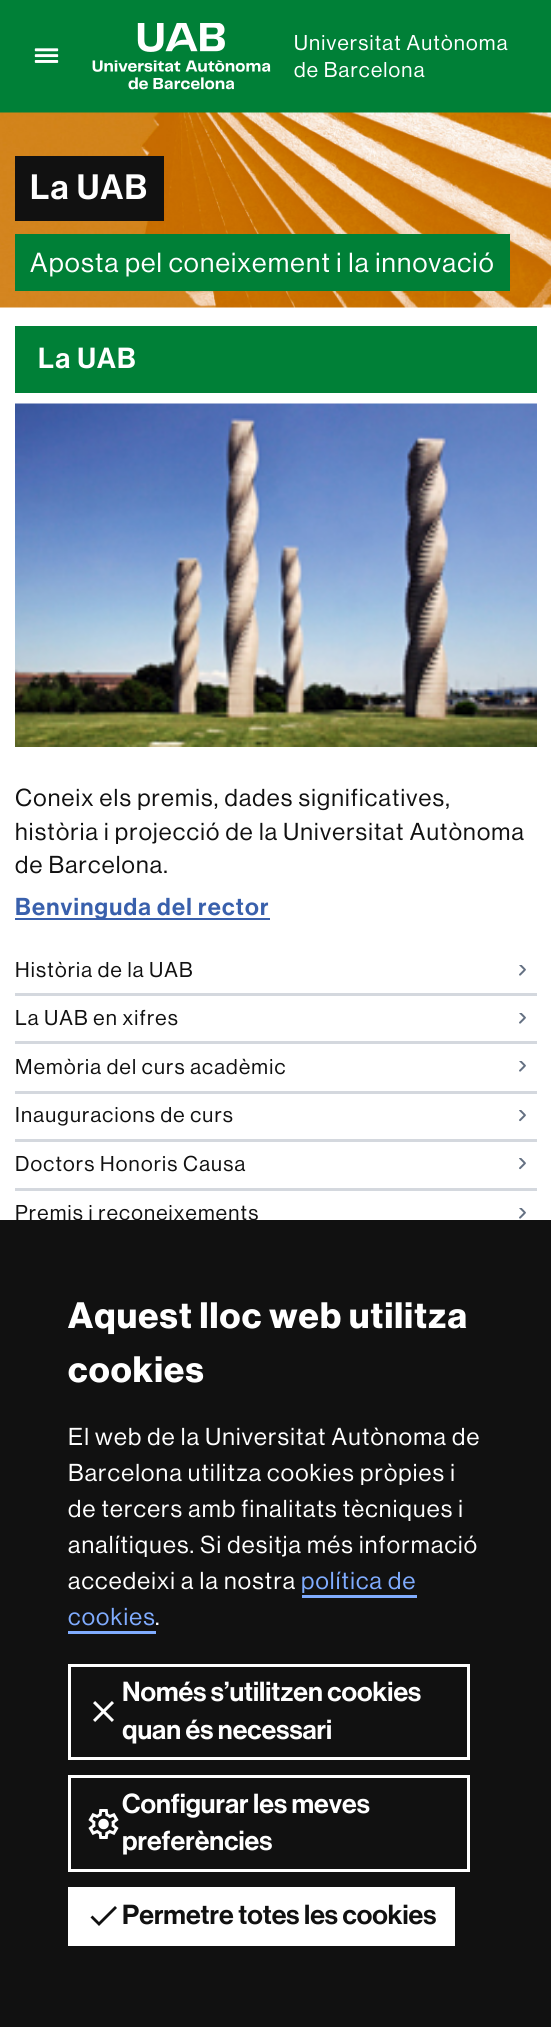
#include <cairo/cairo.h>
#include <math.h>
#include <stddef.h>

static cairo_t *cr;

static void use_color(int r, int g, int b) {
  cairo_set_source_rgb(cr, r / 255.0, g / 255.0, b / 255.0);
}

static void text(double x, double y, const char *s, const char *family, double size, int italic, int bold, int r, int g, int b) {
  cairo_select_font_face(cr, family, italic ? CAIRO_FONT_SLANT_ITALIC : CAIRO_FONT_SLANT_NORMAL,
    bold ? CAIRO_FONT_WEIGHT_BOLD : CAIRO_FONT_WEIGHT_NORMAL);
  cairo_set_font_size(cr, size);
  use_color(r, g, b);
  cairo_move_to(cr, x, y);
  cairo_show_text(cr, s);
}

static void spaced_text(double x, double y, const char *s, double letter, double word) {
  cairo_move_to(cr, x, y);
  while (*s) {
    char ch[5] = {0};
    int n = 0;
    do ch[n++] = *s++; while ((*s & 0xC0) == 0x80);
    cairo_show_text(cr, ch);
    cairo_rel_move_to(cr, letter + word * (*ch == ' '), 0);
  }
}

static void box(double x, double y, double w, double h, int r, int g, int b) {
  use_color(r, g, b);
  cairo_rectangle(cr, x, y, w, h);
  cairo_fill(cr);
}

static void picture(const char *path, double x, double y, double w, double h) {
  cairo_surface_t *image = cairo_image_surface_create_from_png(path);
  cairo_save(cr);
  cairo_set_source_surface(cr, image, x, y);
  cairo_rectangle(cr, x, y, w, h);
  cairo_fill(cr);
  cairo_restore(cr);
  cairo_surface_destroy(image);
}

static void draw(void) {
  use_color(255, 255, 255);
  cairo_paint(cr);
  box(0, 0, 551, 113, 0, 128, 55);
  picture("img_01.png", 34, 48, 25, 15);
  picture("img_02.png", 92, 23, 179, 67);
  picture("img_03.png", 0, 112, 551, 196);
  box(15, 156, 149, 65, 17, 17, 17);
  box(15, 234, 495, 57, 0, 128, 55);
  box(15, 326, 522, 67, 0, 128, 55);
  picture("img_04.png", 15, 403, 522, 344);
  box(15, 918, 255, 2, 57, 96, 172);
  box(15, 993, 522, 3, 212, 216, 222);
  picture("img_05.png", 519, 965, 7, 11);
  box(15, 1041, 522, 3, 212, 216, 222);
  picture("img_05.png", 519, 1013, 7, 11);
  box(15, 1091, 522, 3, 212, 216, 222);
  picture("img_05.png", 519, 1061, 7, 11);
  box(15, 1139, 522, 3, 212, 216, 222);
  picture("img_06.png", 519, 1110, 7, 12);
  box(15, 1188, 522, 3, 212, 216, 222);
  picture("img_06.png", 519, 1158, 7, 12);
  picture("img_05.png", 519, 1208, 7, 11);
  box(0, 1220, 551, 807, 17, 17, 17);
  box(302, 1595, 115, 3, 128, 172, 255);
  box(68, 1631, 88, 3, 128, 172, 255);
  cairo_rectangle(cr, 69.5, 1665.5, 399, 93);
  use_color(255, 255, 255);
  cairo_set_line_width(cr, 3);
  cairo_stroke(cr);
  picture("img_07.png", 93, 1701, 21, 21);
  cairo_rectangle(cr, 69.5, 1776.5, 399, 94);
  cairo_stroke(cr);
  picture("img_08.png", 88, 1809, 31, 30);
  box(68, 1887, 387, 59, 255, 255, 255);
  use_color(17, 17, 17);
  cairo_new_path(cr);
  cairo_move_to(cr, 99, 1922);
  cairo_line_to(cr, 92.5, 1915.5);
  cairo_line_to(cr, 90.5, 1917.5);
  cairo_line_to(cr, 99, 1926);
  cairo_line_to(cr, 117, 1908);
  cairo_line_to(cr, 115, 1906);
  cairo_close_path(cr);
  cairo_fill(cr);
  cairo_select_font_face(cr, "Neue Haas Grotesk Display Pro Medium", CAIRO_FONT_SLANT_NORMAL, CAIRO_FONT_WEIGHT_NORMAL);
  cairo_set_font_size(cr, 21);
  use_color(255, 255, 255);
  spaced_text(294, 50, "Universitat Autònoma", 1.2, 0);
  spaced_text(294, 77, "de Barcelona", 1.2, 0);
  cairo_select_font_face(cr, "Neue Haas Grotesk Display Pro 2 Medium", CAIRO_FONT_SLANT_NORMAL, CAIRO_FONT_WEIGHT_NORMAL);
  cairo_set_font_size(cr, 34.5);
  spaced_text(30, 199, "La UAB", 1.2, 0);
  cairo_select_font_face(cr, "Neue Haas Grotesk Display Pro Medium", CAIRO_FONT_SLANT_NORMAL, CAIRO_FONT_WEIGHT_NORMAL);
  cairo_set_font_size(cr, 27);
  spaced_text(30, 272, "Aposta pel coneixement i la innovació", 1.2, 0);
  cairo_select_font_face(cr, "Neue Haas Grotesk Display Pro 2 Medium", CAIRO_FONT_SLANT_NORMAL, CAIRO_FONT_WEIGHT_NORMAL);
  cairo_set_font_size(cr, 28.5);
  spaced_text(38, 368, "La UAB", 1.2, 0);
  cairo_select_font_face(cr, "Neue Haas Grotesk Display Pro Medium", CAIRO_FONT_SLANT_NORMAL, CAIRO_FONT_WEIGHT_NORMAL);
  cairo_set_font_size(cr, 24);
  use_color(17, 17, 17);
  spaced_text(15, 806, "Coneix els premis, dades significatives,", 1.2, 0);
  spaced_text(15, 840, "història i projecció de la Universitat Autònoma", 1.2, 0);
  spaced_text(15, 873, "de Barcelona.", 1.2, 0);
  cairo_select_font_face(cr, "Neue Haas Grotesk Display Pro 2 Medium", CAIRO_FONT_SLANT_NORMAL, CAIRO_FONT_WEIGHT_NORMAL);
  use_color(57, 96, 172);
  spaced_text(15, 915, "Benvinguda del rector", 1.2, 0);
  cairo_select_font_face(cr, "Neue Haas Grotesk Display Pro Medium", CAIRO_FONT_SLANT_NORMAL, CAIRO_FONT_WEIGHT_NORMAL);
  cairo_set_font_size(cr, 21);
  use_color(17, 17, 17);
  spaced_text(15, 977, "Història de la UAB", 1.2, 0);
  spaced_text(15, 1025, "La UAB en xifres", 1.2, 0);
  spaced_text(15, 1074, "Memòria del curs acadèmic", 1.2, 0);
  spaced_text(15, 1122, "Inauguracions de curs", 1.2, 0);
  spaced_text(15, 1171, "Doctors Honoris Causa", 1.2, 0);
  spaced_text(15, 1220, "Premis i reconeixements", 1.2, 0);
  cairo_select_font_face(cr, "Neue Haas Grotesk Display Pro", CAIRO_FONT_SLANT_NORMAL, CAIRO_FONT_WEIGHT_BOLD);
  cairo_set_font_size(cr, 36);
  use_color(255, 255, 255);
  spaced_text(68, 1328, "Aquest lloc web utilitza", 1.2, 0);
  spaced_text(68, 1382, "cookies", 1.2, 0);
  cairo_select_font_face(cr, "Neue Haas Grotesk Display Pro Medium", CAIRO_FONT_SLANT_NORMAL, CAIRO_FONT_WEIGHT_NORMAL);
  cairo_set_font_size(cr, 24);
  spaced_text(68, 1445, "El web de la Universitat Autònoma de", 1.2, 0);
  spaced_text(68, 1481, "Barcelona utilitza cookies pròpies i", 1.2, 0);
  spaced_text(68, 1517, "de tercers amb finalitats tècniques i", 1.2, 0);
  spaced_text(68, 1553, "analítiques. Si desitja més informació", 1.2, 0);
  spaced_text(68, 1589, "accedeixi a la nostra", 1.2, 0);
  use_color(128, 172, 255);
  spaced_text(301, 1589, "política de", 1.2, 0);
  spaced_text(68, 1625, "cookies", 1.2, 0);
  use_color(255, 255, 255);
  spaced_text(155, 1625, ".", 1.2, 0);
  text(122, 1701, "Només s’utilitzen cookies", "Neue Haas Grotesk Display Pro 2 Medium", 27, 0, 0, 255, 255, 255);
  text(122, 1739, "quan és necessari", "Neue Haas Grotesk Display Pro 2 Medium", 27, 0, 0, 255, 255, 255);
  text(122, 1813, "Configurar les meves", "Neue Haas Grotesk Display Pro 2 Medium", 27, 0, 0, 255, 255, 255);
  text(122, 1850, "preferències", "Neue Haas Grotesk Display Pro 2 Medium", 27, 0, 0, 255, 255, 255);
  text(122, 1924, "Permetre totes les cookies", "Neue Haas Grotesk Display Pro 2 Medium", 27, 0, 0, 17, 17, 17);
}

int main(void) {
  cairo_surface_t *surface = cairo_image_surface_create(CAIRO_FORMAT_RGB24, 551, 2027);
  cr = cairo_create(surface);
  cairo_font_options_t *options = cairo_font_options_create();
  cairo_font_options_set_hint_metrics(options, CAIRO_HINT_METRICS_OFF);
  cairo_font_options_set_hint_style(options, CAIRO_HINT_STYLE_NONE);
  cairo_set_font_options(cr, options);
  cairo_set_miter_limit(cr, 4);
  draw();
  cairo_surface_write_to_png(surface, "out.png");
  cairo_font_options_destroy(options);
  cairo_destroy(cr);
  cairo_surface_destroy(surface);
  return 0;
}
